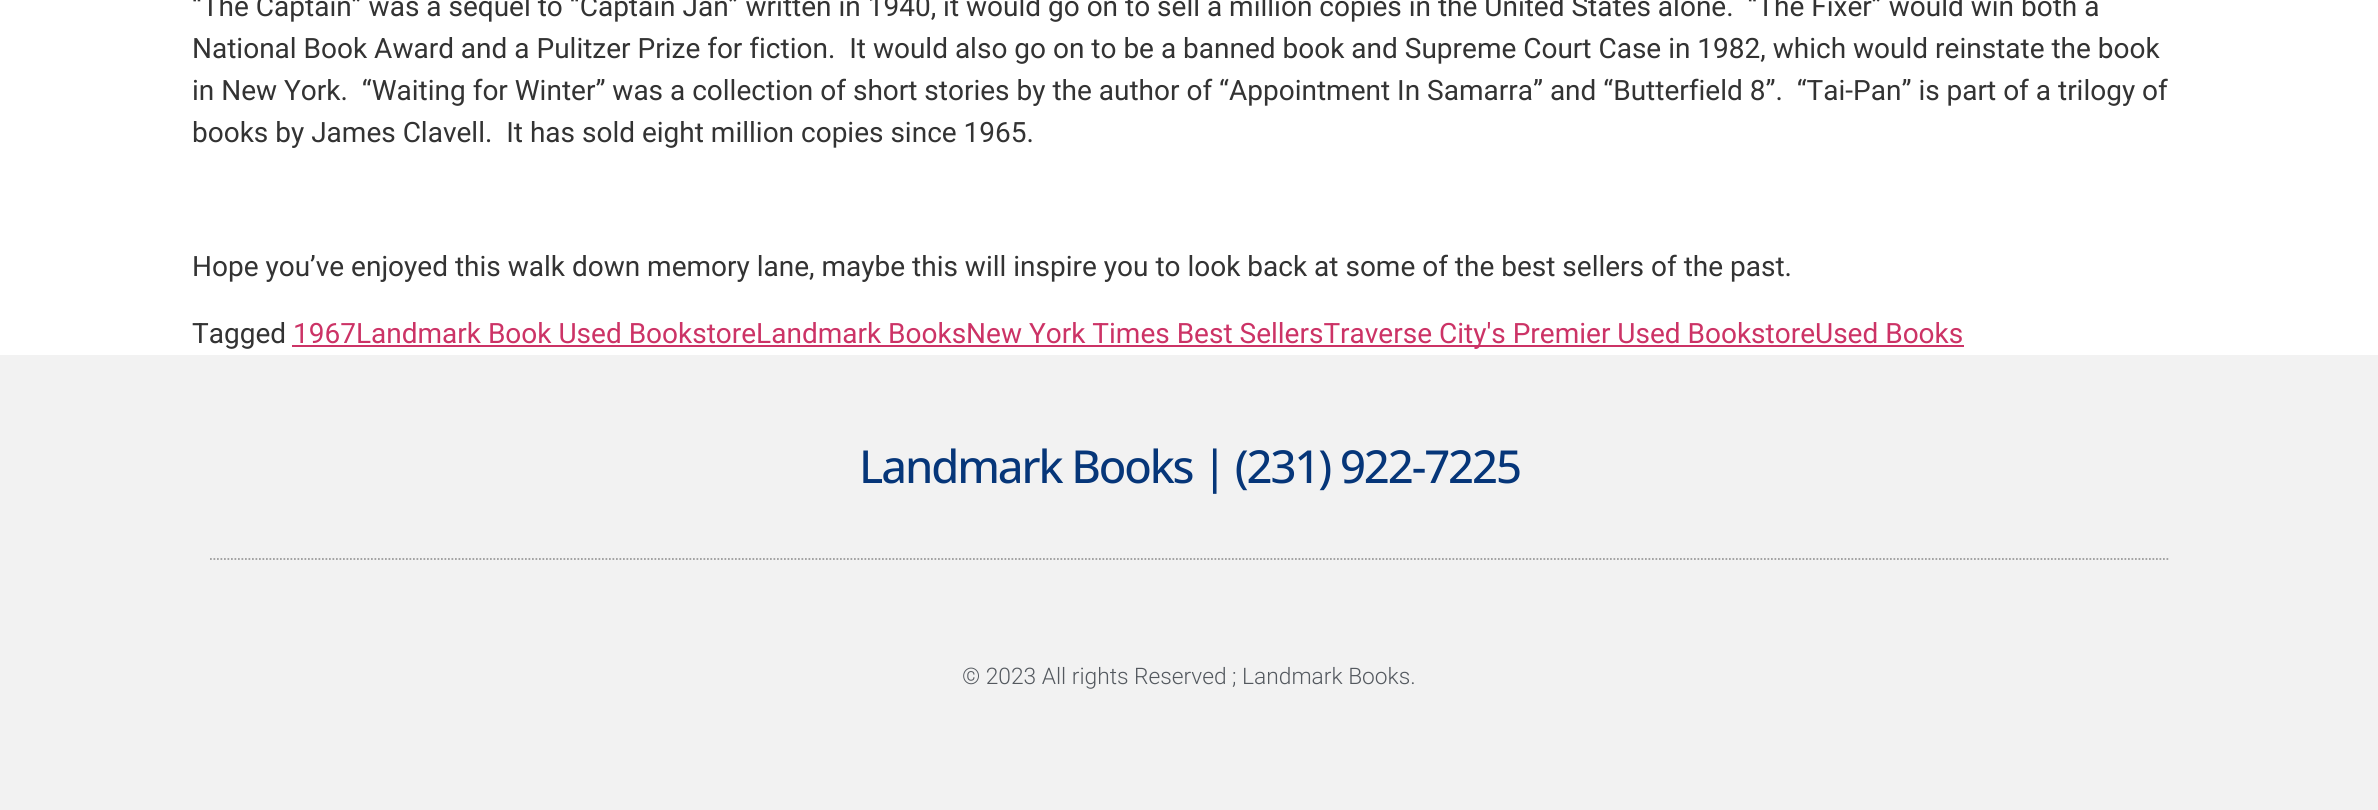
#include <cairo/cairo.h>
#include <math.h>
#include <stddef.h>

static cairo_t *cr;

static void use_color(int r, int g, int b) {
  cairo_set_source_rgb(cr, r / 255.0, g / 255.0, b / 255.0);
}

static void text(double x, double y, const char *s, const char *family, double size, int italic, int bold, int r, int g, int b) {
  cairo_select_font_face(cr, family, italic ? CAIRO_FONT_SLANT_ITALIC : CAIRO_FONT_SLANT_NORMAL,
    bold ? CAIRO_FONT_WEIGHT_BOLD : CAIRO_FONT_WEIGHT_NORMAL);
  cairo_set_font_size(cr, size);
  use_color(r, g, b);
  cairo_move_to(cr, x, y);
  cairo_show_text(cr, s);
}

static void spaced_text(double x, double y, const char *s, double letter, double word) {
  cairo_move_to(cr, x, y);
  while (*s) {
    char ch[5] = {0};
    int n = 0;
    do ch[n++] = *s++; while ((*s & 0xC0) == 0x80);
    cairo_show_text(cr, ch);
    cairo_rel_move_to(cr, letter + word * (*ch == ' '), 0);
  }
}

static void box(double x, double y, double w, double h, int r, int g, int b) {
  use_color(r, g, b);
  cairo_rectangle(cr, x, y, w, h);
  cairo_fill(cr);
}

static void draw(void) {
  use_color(255, 255, 255);
  cairo_paint(cr);
  box(292, 345, 1672, 2, 204, 51, 102);
  box(0, 355, 2378, 455, 242, 242, 242);
  cairo_new_path(cr);
  cairo_move_to(cr, 210, 559);
  cairo_line_to(cr, 2170, 559);
  use_color(155, 155, 155);
  cairo_set_line_width(cr, 1.8);
  cairo_set_dash(cr, (double[]){1.75, 1.75}, 2, 0);
  cairo_stroke(cr);
  text(192, 16, "“The Captain” was a sequel to “Captain Jan” written in 1940, it would go on to sell a million copies in the United States alone.  “The Fixer” would win both a", "Roboto", 28, 0, 0, 51, 51, 51);
  text(192, 58, "National Book Award and a Pulitzer Prize for fiction.  It would also go on to be a banned book and Supreme Court Case in 1982, which would reinstate the book", "Roboto", 28, 0, 0, 51, 51, 51);
  text(192, 100, "in New York.  “Waiting for Winter” was a collection of short stories by the author of “Appointment In Samarra” and “Butterfield 8”.  “Tai-Pan” is part of a trilogy of", "Roboto", 28, 0, 0, 51, 51, 51);
  text(192, 142, "books by James Clavell.  It has sold eight million copies since 1965.", "Roboto", 28, 0, 0, 51, 51, 51);
  text(192, 276, "Hope you’ve enjoyed this walk down memory lane, maybe this will inspire you to look back at some of the best sellers of the past.", "Roboto", 28, 0, 0, 51, 51, 51);
  text(192, 343, "Tagged", "Roboto", 28, 0, 0, 51, 51, 51);
  text(293, 343, "1967Landmark Book Used BookstoreLandmark BooksNew York Times Best SellersTraverse City's Premier Used BookstoreUsed Books", "Roboto", 28, 0, 0, 204, 51, 102);
  cairo_select_font_face(cr, "Open Sans Medium", CAIRO_FONT_SLANT_NORMAL, CAIRO_FONT_WEIGHT_NORMAL);
  cairo_set_font_size(cr, 45.5);
  use_color(6, 54, 121);
  spaced_text(859, 483, "Landmark Books | (231) 922-7225", -2.1, 0);
  text(962, 684, "© 2023 All rights Reserved ; Landmark Books.", "Roboto Light", 22.75, 0, 0, 84, 89, 95);
}

int main(void) {
  cairo_surface_t *surface = cairo_image_surface_create(CAIRO_FORMAT_RGB24, 2378, 810);
  cr = cairo_create(surface);
  cairo_font_options_t *options = cairo_font_options_create();
  cairo_font_options_set_hint_metrics(options, CAIRO_HINT_METRICS_OFF);
  cairo_font_options_set_hint_style(options, CAIRO_HINT_STYLE_NONE);
  cairo_set_font_options(cr, options);
  cairo_set_miter_limit(cr, 4);
  draw();
  cairo_surface_write_to_png(surface, "out.png");
  cairo_font_options_destroy(options);
  cairo_destroy(cr);
  cairo_surface_destroy(surface);
  return 0;
}
